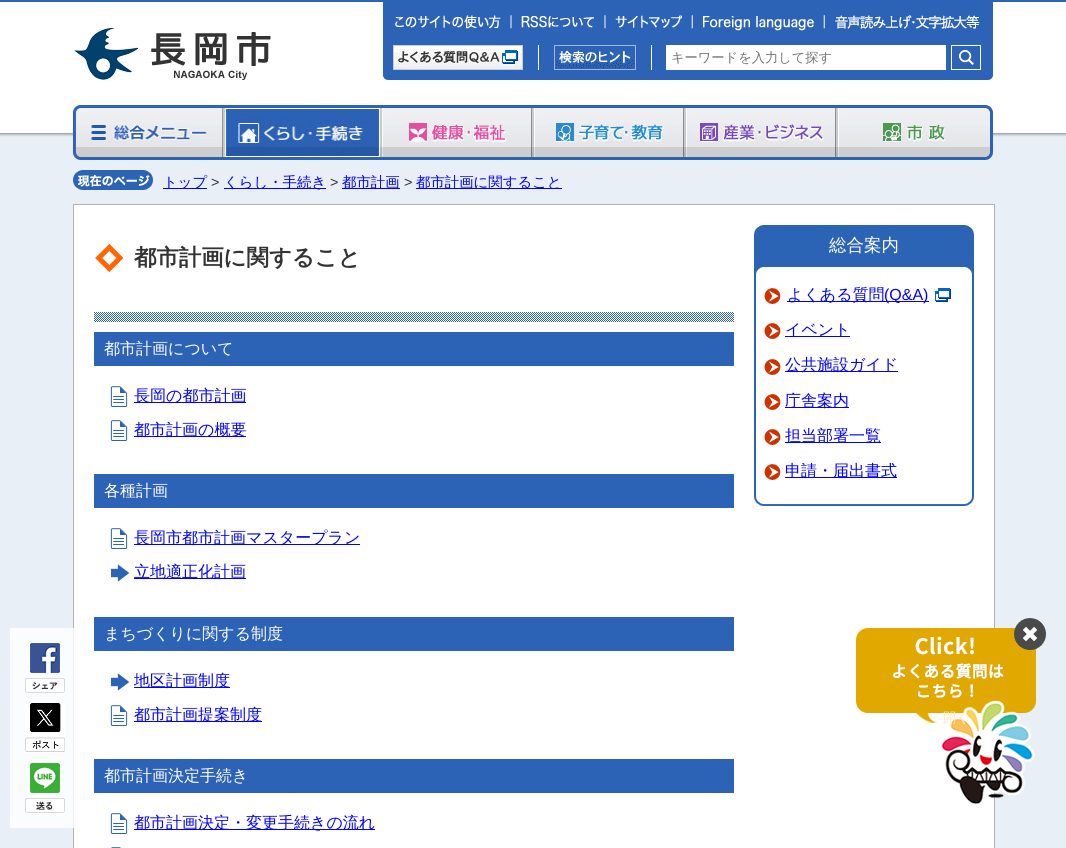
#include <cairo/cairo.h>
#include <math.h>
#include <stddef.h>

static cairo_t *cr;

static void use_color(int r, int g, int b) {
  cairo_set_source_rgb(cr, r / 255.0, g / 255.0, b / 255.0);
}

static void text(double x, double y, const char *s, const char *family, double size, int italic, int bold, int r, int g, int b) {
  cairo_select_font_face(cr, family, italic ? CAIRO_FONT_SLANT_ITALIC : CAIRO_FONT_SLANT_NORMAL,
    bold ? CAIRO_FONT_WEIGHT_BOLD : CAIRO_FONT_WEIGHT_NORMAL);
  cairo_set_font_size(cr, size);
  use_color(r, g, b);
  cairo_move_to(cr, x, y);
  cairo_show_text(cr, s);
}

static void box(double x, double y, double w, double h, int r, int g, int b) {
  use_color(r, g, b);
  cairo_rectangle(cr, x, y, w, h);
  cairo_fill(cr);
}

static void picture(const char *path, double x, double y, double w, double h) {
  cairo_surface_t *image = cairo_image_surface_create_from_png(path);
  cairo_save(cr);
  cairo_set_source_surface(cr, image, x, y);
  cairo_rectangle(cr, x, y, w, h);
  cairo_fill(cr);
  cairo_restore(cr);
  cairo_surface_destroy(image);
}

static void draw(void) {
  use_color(255, 255, 255);
  cairo_paint(cr);
  box(0, 160, 1066, 688, 233, 239, 247);
  use_color(255, 255, 255);
  cairo_rectangle(cr, 73.5, 204.5, 921, 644);
  cairo_fill_preserve(cr);
  use_color(179, 179, 179);
  cairo_set_line_width(cr, 1);
  cairo_stroke(cr);
  cairo_set_source_rgba(cr, 1, 1, 1, 0.8);
  cairo_rectangle(cr, 10, 628, 64, 200);
  cairo_fill(cr);
  picture("img_01.png", 25, 643, 40, 50);
  picture("img_02.png", 25, 703, 40, 50);
  picture("img_03.png", 25, 763, 40, 50);
  picture("img_04.png", 0, 0, 1066, 160);
  picture("img_05.png", 74, 28, 197, 52);
  box(383, 2, 610, 73, 44, 99, 182);
  picture("img_06.png", 383, 75, 610, 5);
  picture("img_07.png", 395, 15, 116, 14);
  picture("img_08.png", 511, 15, 94, 14);
  picture("img_09.png", 605, 15, 87, 14);
  picture("img_10.png", 692, 15, 132, 16);
  picture("img_11.png", 824, 15, 156, 14);
  box(538, 45, 1, 25, 255, 255, 255);
  picture("img_12.png", 393, 45, 130, 25);
  box(651, 45, 1, 25, 255, 255, 255);
  picture("img_13.png", 554, 45, 82, 25);
  box(666, 45, 280, 25, 255, 255, 255);
  cairo_rectangle(cr, 951.5, 45.5, 29, 24);
  cairo_stroke(cr);
  picture("img_14.png", 952, 46, 28, 23);
  picture("img_15.png", 73, 105, 152, 55);
  picture("img_16.png", 225, 105, 156, 55);
  picture("img_17.png", 381, 105, 152, 55);
  picture("img_18.png", 533, 105, 152, 55);
  picture("img_19.png", 685, 105, 152, 55);
  picture("img_20.png", 837, 105, 156, 55);
  picture("img_21.png", 73, 170, 80, 20);
  box(163, 188, 44, 1, 0, 0, 255);
  box(224, 188, 102, 1, 0, 0, 255);
  box(342, 188, 58, 1, 0, 0, 255);
  box(416, 188, 146, 1, 0, 0, 255);
  picture("img_22.png", 94, 312, 640, 10);
  picture("img_23.png", 95, 243, 29, 30);
  box(94, 332, 640, 34, 44, 99, 182);
  picture("img_24.png", 110, 386, 18, 21);
  box(134, 402, 112, 1, 0, 0, 255);
  picture("img_24.png", 110, 420, 18, 21);
  box(134, 436, 112, 1, 0, 0, 255);
  box(94, 474, 640, 34, 44, 99, 182);
  picture("img_24.png", 110, 528, 18, 21);
  box(134, 544, 226, 1, 0, 0, 255);
  picture("img_25.png", 111, 564, 19, 18);
  box(134, 578, 112, 1, 0, 0, 255);
  box(94, 617, 640, 34, 44, 99, 182);
  picture("img_25.png", 111, 673, 19, 18);
  box(134, 687, 96, 1, 0, 0, 255);
  picture("img_24.png", 110, 705, 18, 21);
  box(134, 721, 128, 1, 0, 0, 255);
  box(94, 759, 640, 34, 44, 99, 182);
  picture("img_24.png", 110, 813, 18, 21);
  box(134, 829, 241, 1, 0, 0, 255);
  picture("img_26.png", 111, 847, 10, 1);
  picture("img_27.png", 754, 225, 220, 50);
  picture("img_28.png", 754, 275, 220, 231);
  picture("img_29.png", 764, 288, 17, 16);
  box(787, 301, 142, 1, 0, 0, 255);
  picture("img_30.png", 935, 288, 16, 14);
  picture("img_29.png", 764, 323, 17, 16);
  box(785, 336, 65, 1, 0, 0, 255);
  picture("img_29.png", 764, 359, 17, 16);
  box(785, 371, 113, 1, 0, 0, 255);
  picture("img_29.png", 764, 394, 17, 16);
  box(785, 407, 64, 1, 0, 0, 255);
  picture("img_29.png", 764, 429, 17, 16);
  box(785, 442, 96, 1, 0, 0, 255);
  picture("img_29.png", 764, 464, 17, 16);
  box(785, 477, 112, 1, 0, 0, 255);
  picture("img_31.png", 856, 628, 180, 177);
  picture("img_32.png", 1014, 618, 32, 32);
  text(671, 62, "キーワードを入力して探す", "WenQuanYi Zen Hei Medium", 13.25, 0, 0, 117, 117, 117);
  text(163, 187, "トップ", "WenQuanYi Zen Hei Medium", 14.4, 0, 0, 0, 0, 255);
  text(211, 187, ">", "Liberation Sans", 14.4, 0, 0, 51, 51, 51);
  text(224, 187, "くらし・手続き", "WenQuanYi Zen Hei Medium", 14.4, 0, 0, 0, 0, 255);
  text(330, 187, ">", "Liberation Sans", 14.4, 0, 0, 51, 51, 51);
  text(342, 187, "都市計画", "WenQuanYi Zen Hei Medium", 14.4, 0, 0, 0, 0, 255);
  text(404, 187, ">", "Liberation Sans", 14.4, 0, 0, 51, 51, 51);
  text(416, 187, "都市計画に関すること", "WenQuanYi Zen Hei Medium", 14.4, 0, 0, 0, 0, 255);
  text(134, 265, "都市計画に関すること", "WenQuanYi Zen Hei", 22.4, 0, 1, 51, 51, 51);
  text(104, 354, "都市計画について", "WenQuanYi Zen Hei Medium", 16, 0, 0, 255, 255, 255);
  text(134, 401, "長岡の都市計画", "WenQuanYi Zen Hei Medium", 16, 0, 0, 0, 0, 255);
  text(134, 435, "都市計画の概要", "WenQuanYi Zen Hei Medium", 16, 0, 0, 0, 0, 255);
  text(104, 496, "各種計画", "WenQuanYi Zen Hei Medium", 16, 0, 0, 255, 255, 255);
  text(134, 543, "長岡市都市計画マスタープラン", "WenQuanYi Zen Hei Medium", 16, 0, 0, 0, 0, 255);
  text(134, 577, "立地適正化計画", "WenQuanYi Zen Hei Medium", 16, 0, 0, 0, 0, 255);
  text(104, 639, "まちづくりに関する制度", "WenQuanYi Zen Hei Medium", 16, 0, 0, 255, 255, 255);
  text(134, 686, "地区計画制度", "WenQuanYi Zen Hei Medium", 16, 0, 0, 0, 0, 255);
  text(134, 720, "都市計画提案制度", "WenQuanYi Zen Hei Medium", 16, 0, 0, 0, 0, 255);
  text(104, 781, "都市計画決定手続き", "WenQuanYi Zen Hei Medium", 16, 0, 0, 255, 255, 255);
  text(134, 828, "都市計画決定・変更手続きの流れ", "WenQuanYi Zen Hei Medium", 16, 0, 0, 0, 0, 255);
  text(829, 251, "総合案内", "WenQuanYi Zen Hei Medium", 17.5, 0, 0, 255, 255, 255);
  text(787, 300, "よくある質問", "WenQuanYi Zen Hei Medium", 16, 0, 0, 0, 0, 255);
  text(884, 300, "(Q&A)", "Liberation Sans", 16, 0, 0, 0, 0, 255);
  text(785, 335, "イベント", "WenQuanYi Zen Hei Medium", 16, 0, 0, 0, 0, 255);
  text(785, 370, "公共施設ガイド", "WenQuanYi Zen Hei Medium", 16, 0, 0, 0, 0, 255);
  text(785, 406, "庁舎案内", "WenQuanYi Zen Hei Medium", 16, 0, 0, 0, 0, 255);
  text(785, 441, "担当部署一覧", "WenQuanYi Zen Hei Medium", 16, 0, 0, 0, 0, 255);
  text(785, 476, "申請・届出書式", "WenQuanYi Zen Hei Medium", 16, 0, 0, 0, 0, 255);
  text(943, 722, "開く", "WenQuanYi Zen Hei Medium", 13.25, 0, 0, 250, 233, 193);
}

int main(void) {
  cairo_surface_t *surface = cairo_image_surface_create(CAIRO_FORMAT_RGB24, 1066, 848);
  cr = cairo_create(surface);
  cairo_font_options_t *options = cairo_font_options_create();
  cairo_font_options_set_hint_metrics(options, CAIRO_HINT_METRICS_OFF);
  cairo_font_options_set_hint_style(options, CAIRO_HINT_STYLE_NONE);
  cairo_set_font_options(cr, options);
  cairo_set_miter_limit(cr, 4);
  draw();
  cairo_surface_write_to_png(surface, "out.png");
  cairo_font_options_destroy(options);
  cairo_destroy(cr);
  cairo_surface_destroy(surface);
  return 0;
}
